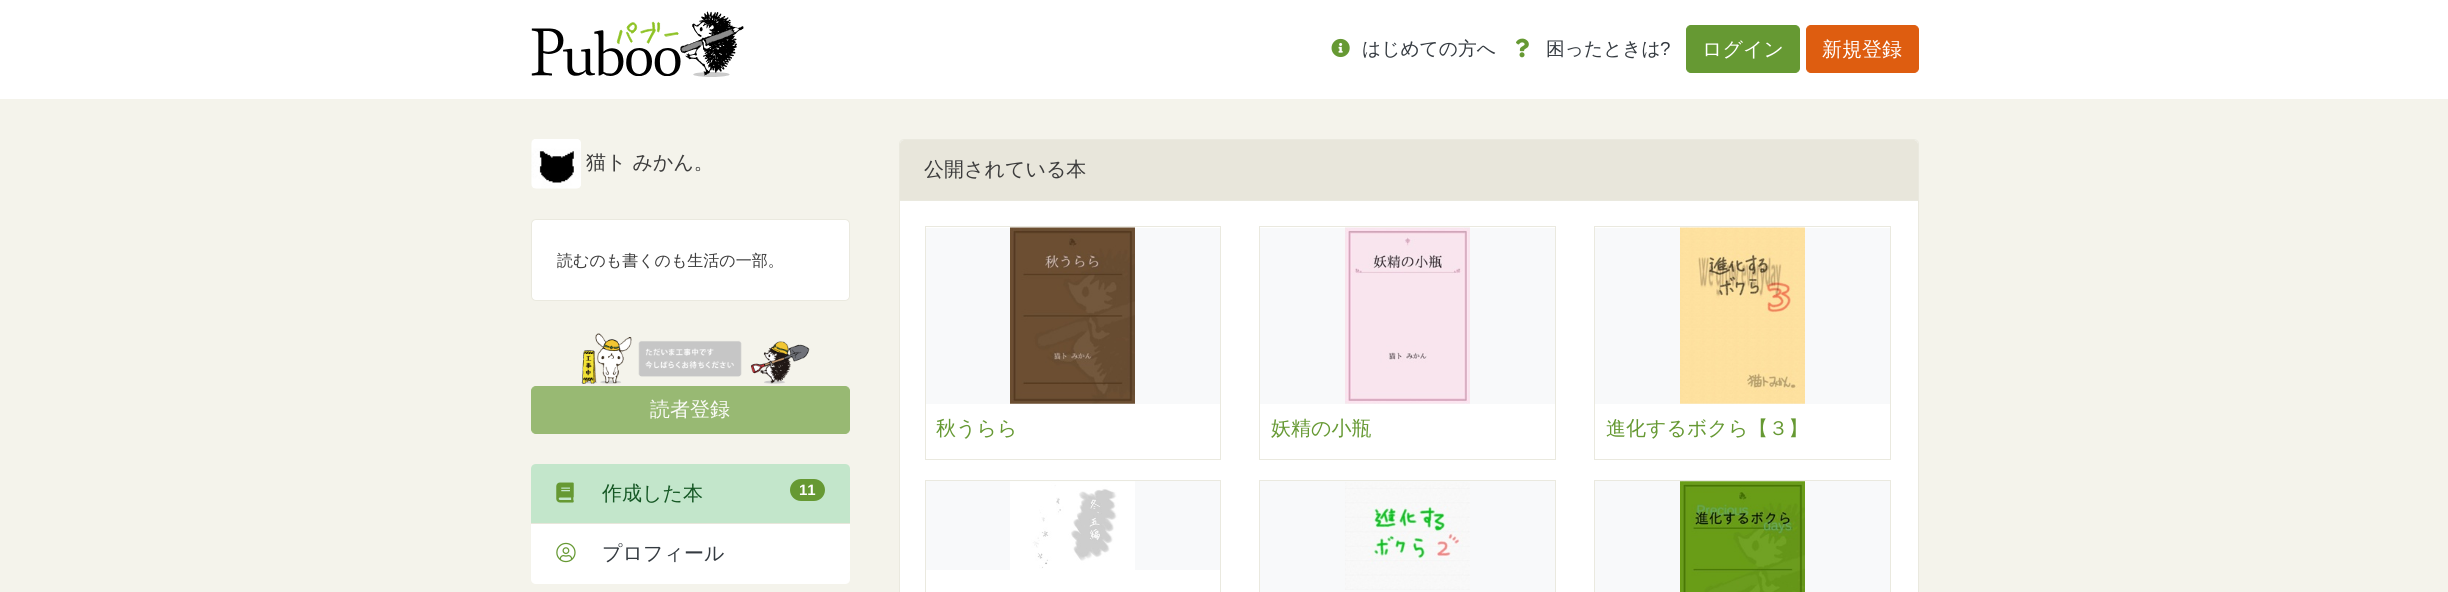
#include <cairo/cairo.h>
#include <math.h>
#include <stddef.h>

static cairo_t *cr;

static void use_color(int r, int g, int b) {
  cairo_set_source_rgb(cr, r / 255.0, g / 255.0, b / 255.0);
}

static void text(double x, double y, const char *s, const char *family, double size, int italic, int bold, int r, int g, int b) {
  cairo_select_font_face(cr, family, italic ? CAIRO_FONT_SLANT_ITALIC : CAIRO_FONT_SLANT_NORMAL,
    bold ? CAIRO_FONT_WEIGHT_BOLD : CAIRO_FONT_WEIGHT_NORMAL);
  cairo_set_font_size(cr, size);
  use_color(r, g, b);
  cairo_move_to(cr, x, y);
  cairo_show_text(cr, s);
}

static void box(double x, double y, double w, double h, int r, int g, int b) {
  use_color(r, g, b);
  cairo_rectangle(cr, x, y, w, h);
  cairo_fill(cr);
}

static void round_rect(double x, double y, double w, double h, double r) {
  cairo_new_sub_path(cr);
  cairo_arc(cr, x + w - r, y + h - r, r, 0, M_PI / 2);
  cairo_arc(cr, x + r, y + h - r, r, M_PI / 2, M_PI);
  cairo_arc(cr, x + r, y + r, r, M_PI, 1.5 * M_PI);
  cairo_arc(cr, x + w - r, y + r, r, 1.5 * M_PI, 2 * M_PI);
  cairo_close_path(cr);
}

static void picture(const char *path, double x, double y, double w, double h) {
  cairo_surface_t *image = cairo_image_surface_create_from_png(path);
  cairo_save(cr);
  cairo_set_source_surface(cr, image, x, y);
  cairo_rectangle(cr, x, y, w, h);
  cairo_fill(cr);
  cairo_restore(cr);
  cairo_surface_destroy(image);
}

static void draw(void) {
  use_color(244, 243, 235);
  cairo_paint(cr);
  box(0, 0, 2448, 99, 255, 255, 255);
  picture("img_01.png", 531, 11, 213, 66);
  picture("img_02.png", 1331, 38, 19, 20);
  picture("img_03.png", 1516, 38, 13, 20);
  use_color(102, 153, 51);
  round_rect(1686.5, 25.5, 113, 47, 4.5);
  cairo_fill_preserve(cr);
  cairo_set_line_width(cr, 1);
  cairo_stroke(cr);
  use_color(222, 93, 16);
  round_rect(1806.5, 25.5, 112, 47, 4.5);
  cairo_fill_preserve(cr);
  cairo_stroke(cr);
  picture("img_04.png", 531, 139, 50, 50);
  use_color(255, 255, 255);
  round_rect(531.5, 219.5, 318, 81, 4.5);
  cairo_fill_preserve(cr);
  use_color(234, 233, 223);
  cairo_stroke(cr);
  picture("img_05.png", 581, 333, 229, 51);
  use_color(152, 185, 115);
  round_rect(531.5, 386.5, 318, 47, 4.5);
  cairo_fill_preserve(cr);
  cairo_stroke(cr);
  use_color(195, 230, 203);
  cairo_new_path(cr);
  cairo_move_to(cr, 536, 464);
  cairo_line_to(cr, 845, 464);
  cairo_curve_to(cr, 848, 464, 850, 466, 850, 469);
  cairo_line_to(cr, 850, 524);
  cairo_line_to(cr, 531, 524);
  cairo_line_to(cr, 531, 469);
  cairo_curve_to(cr, 531, 466, 533, 464, 536, 464);
  cairo_close_path(cr);
  cairo_fill(cr);
  picture("img_06.png", 556, 482, 18, 21);
  use_color(102, 153, 51);
  round_rect(790, 479, 35, 22, 11);
  cairo_fill(cr);
  use_color(255, 255, 255);
  cairo_new_path(cr);
  cairo_move_to(cr, 531, 523);
  cairo_line_to(cr, 850, 523);
  cairo_line_to(cr, 850, 579);
  cairo_curve_to(cr, 850, 582, 848, 584, 845, 584);
  cairo_line_to(cr, 536, 584);
  cairo_curve_to(cr, 533, 584, 531, 582, 531, 579);
  cairo_close_path(cr);
  cairo_fill(cr);
  box(531, 523, 319, 1, 232, 230, 219);
  picture("img_07.png", 556, 542, 20, 21);
  use_color(255, 255, 255);
  round_rect(899.5, 139.5, 1019, 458, 4.5);
  cairo_fill_preserve(cr);
  use_color(234, 233, 223);
  cairo_stroke(cr);
  use_color(232, 230, 219);
  cairo_new_path(cr);
  cairo_move_to(cr, 904, 140);
  cairo_line_to(cr, 1914, 140);
  cairo_curve_to(cr, 1916, 140, 1918, 142, 1918, 144);
  cairo_line_to(cr, 1918, 201);
  cairo_line_to(cr, 900, 201);
  cairo_line_to(cr, 900, 144);
  cairo_curve_to(cr, 900, 142, 902, 140, 904, 140);
  cairo_close_path(cr);
  cairo_fill(cr);
  box(900, 200, 1018, 1, 234, 233, 223);
  cairo_rectangle(cr, 925.5, 226.5, 295, 233);
  cairo_stroke(cr);
  box(926, 228, 294, 176, 248, 249, 250);
  picture("img_08.png", 1010, 227, 125, 177);
  cairo_rectangle(cr, 1259.5, 226.5, 296, 233);
  use_color(234, 233, 223);
  cairo_stroke(cr);
  box(1260, 228, 295, 176, 248, 249, 250);
  picture("img_09.png", 1345, 227, 125, 177);
  cairo_rectangle(cr, 1594.5, 226.5, 296, 233);
  use_color(234, 233, 223);
  cairo_stroke(cr);
  box(1595, 228, 295, 176, 248, 249, 250);
  picture("img_10.png", 1680, 227, 125, 177);
  cairo_rectangle(cr, 925.5, 480.5, 295, 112);
  use_color(234, 233, 223);
  cairo_stroke(cr);
  box(926, 481, 294, 89, 248, 249, 250);
  picture("img_11.png", 1010, 481, 125, 89);
  cairo_rectangle(cr, 1259.5, 480.5, 296, 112);
  use_color(234, 233, 223);
  cairo_stroke(cr);
  box(1260, 481, 295, 111, 248, 249, 250);
  picture("img_12.png", 1345, 482, 125, 108);
  cairo_rectangle(cr, 1594.5, 480.5, 296, 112);
  use_color(234, 233, 223);
  cairo_stroke(cr);
  box(1595, 481, 295, 111, 248, 249, 250);
  picture("img_13.png", 1680, 481, 125, 111);
  text(1362, 55, "はじめての方へ", "WenQuanYi Zen Hei Medium", 18.75, 0, 0, 52, 58, 64);
  text(1546, 55, "困ったときは", "WenQuanYi Zen Hei Medium", 18.75, 0, 0, 52, 58, 64);
  text(1660, 55, "?", "Liberation Sans", 18.75, 0, 0, 52, 58, 64);
  text(1702, 56, "ログイン", "WenQuanYi Zen Hei Medium", 20, 0, 0, 255, 255, 255);
  text(1822, 56, "新規登録", "WenQuanYi Zen Hei Medium", 20, 0, 0, 255, 255, 255);
  text(586, 169, "猫ト みかん。", "WenQuanYi Zen Hei Medium", 20, 0, 0, 60, 60, 60);
  text(557, 266, "読むのも書くのも生活の一部。", "WenQuanYi Zen Hei Medium", 16, 0, 0, 60, 60, 60);
  text(650, 416, "読者登録", "WenQuanYi Zen Hei Medium", 20, 0, 0, 251, 251, 248);
  text(602, 500, "作成した本", "WenQuanYi Zen Hei Medium", 20, 0, 0, 21, 87, 36);
  text(799, 495, "11", "Liberation Sans", 15, 0, 1, 255, 255, 255);
  text(602, 560, "プロフィール", "WenQuanYi Zen Hei Medium", 20, 0, 0, 52, 58, 64);
  text(924, 176, "公開されている本", "WenQuanYi Zen Hei Medium", 20, 0, 0, 60, 60, 60);
  text(936, 435, "秋うらら", "WenQuanYi Zen Hei Medium", 20, 0, 0, 102, 153, 51);
  text(1271, 435, "妖精の小瓶", "WenQuanYi Zen Hei Medium", 20, 0, 0, 102, 153, 51);
  text(1606, 435, "進化するボクら【３】", "WenQuanYi Zen Hei Medium", 20, 0, 0, 102, 153, 51);
}

int main(void) {
  cairo_surface_t *surface = cairo_image_surface_create(CAIRO_FORMAT_RGB24, 2448, 592);
  cr = cairo_create(surface);
  cairo_font_options_t *options = cairo_font_options_create();
  cairo_font_options_set_hint_metrics(options, CAIRO_HINT_METRICS_OFF);
  cairo_font_options_set_hint_style(options, CAIRO_HINT_STYLE_NONE);
  cairo_set_font_options(cr, options);
  cairo_set_miter_limit(cr, 4);
  draw();
  cairo_surface_write_to_png(surface, "out.png");
  cairo_font_options_destroy(options);
  cairo_destroy(cr);
  cairo_surface_destroy(surface);
  return 0;
}
